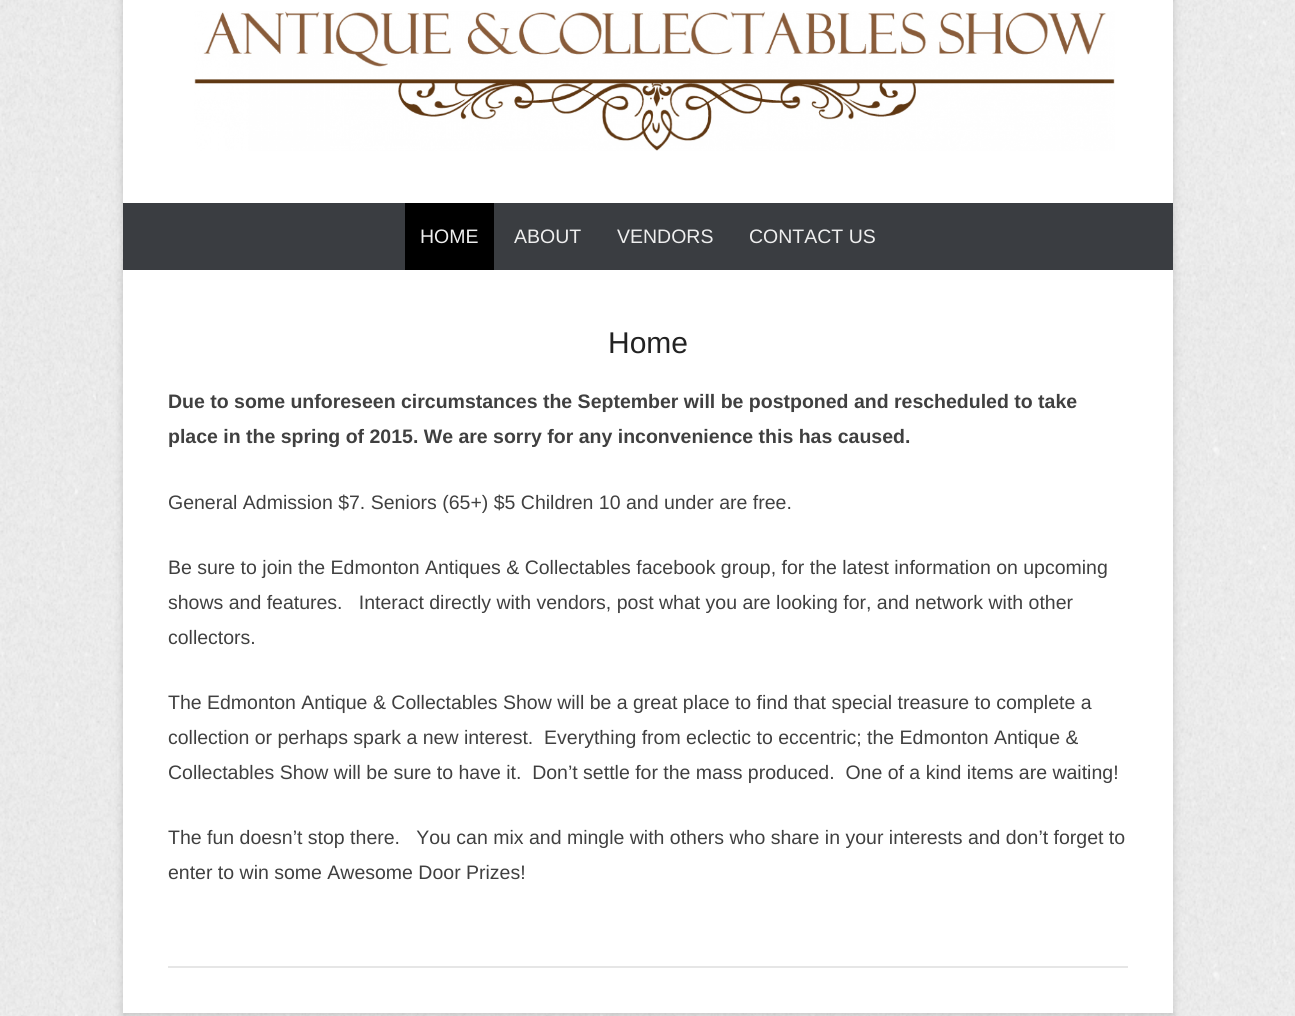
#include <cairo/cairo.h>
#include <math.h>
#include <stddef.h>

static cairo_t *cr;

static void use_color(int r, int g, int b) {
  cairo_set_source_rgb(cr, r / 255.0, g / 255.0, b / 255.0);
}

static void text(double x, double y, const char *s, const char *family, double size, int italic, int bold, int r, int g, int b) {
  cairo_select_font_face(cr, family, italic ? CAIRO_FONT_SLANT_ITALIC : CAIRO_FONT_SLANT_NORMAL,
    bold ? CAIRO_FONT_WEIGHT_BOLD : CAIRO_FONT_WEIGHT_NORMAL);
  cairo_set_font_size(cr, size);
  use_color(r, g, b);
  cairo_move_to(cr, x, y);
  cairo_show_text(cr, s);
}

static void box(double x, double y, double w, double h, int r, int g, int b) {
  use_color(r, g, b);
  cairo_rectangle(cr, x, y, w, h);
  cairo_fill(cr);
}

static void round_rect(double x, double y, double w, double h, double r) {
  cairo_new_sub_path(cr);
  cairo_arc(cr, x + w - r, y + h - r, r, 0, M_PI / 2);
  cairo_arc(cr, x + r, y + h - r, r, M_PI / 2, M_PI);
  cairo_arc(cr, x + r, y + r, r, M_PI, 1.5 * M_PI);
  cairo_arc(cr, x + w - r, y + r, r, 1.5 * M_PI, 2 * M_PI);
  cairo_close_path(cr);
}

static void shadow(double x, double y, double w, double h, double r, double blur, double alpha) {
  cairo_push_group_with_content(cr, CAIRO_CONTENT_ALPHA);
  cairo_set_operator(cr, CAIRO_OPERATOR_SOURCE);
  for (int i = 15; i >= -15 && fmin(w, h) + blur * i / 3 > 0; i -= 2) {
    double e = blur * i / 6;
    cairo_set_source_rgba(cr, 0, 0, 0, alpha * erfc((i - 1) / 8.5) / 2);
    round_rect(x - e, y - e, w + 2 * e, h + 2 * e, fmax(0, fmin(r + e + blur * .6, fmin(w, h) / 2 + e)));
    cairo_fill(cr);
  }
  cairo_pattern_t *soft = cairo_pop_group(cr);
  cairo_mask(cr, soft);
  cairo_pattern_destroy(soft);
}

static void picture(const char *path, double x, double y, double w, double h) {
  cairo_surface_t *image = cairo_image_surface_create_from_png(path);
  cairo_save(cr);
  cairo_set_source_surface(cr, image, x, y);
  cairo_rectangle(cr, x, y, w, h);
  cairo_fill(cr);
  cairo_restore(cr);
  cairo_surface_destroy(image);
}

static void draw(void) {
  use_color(255, 255, 255);
  cairo_paint(cr);
  picture("img_01.png", 0, 0, 1295, 1016);
  use_color(100, 100, 100);
  shadow(123, -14, 1050, 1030, 0, 4.5, 0.3);
  box(123, 0, 1050, 1013, 255, 255, 255);
  picture("img_02.png", 194, 11, 921, 140);
  box(123, 203, 1050, 67, 58, 61, 65);
  box(405, 203, 89, 67, 0, 0, 0);
  box(168, 966, 960, 2, 230, 230, 230);
  text(420, 243, "HOME", "Liberation Sans", 19.5, 0, 0, 238, 238, 238);
  text(514, 243, "ABOUT", "Liberation Sans", 19.5, 0, 0, 238, 238, 238);
  text(617, 243, "VENDORS", "Liberation Sans", 19.5, 0, 0, 238, 238, 238);
  text(749, 243, "CONTACT US", "Liberation Sans", 19.5, 0, 0, 238, 238, 238);
  text(608, 353, "Home", "Liberation Sans", 30, 0, 0, 34, 34, 34);
  text(168, 408, "Due to some unforeseen circumstances the September will be postponed and rescheduled to take", "Liberation Sans", 19.5, 0, 1, 64, 64, 64);
  text(168, 443, "place in the spring of 2015. We are sorry for any inconvenience this has caused.", "Liberation Sans", 19.5, 0, 1, 64, 64, 64);
  text(168, 509, "General Admission $7. Seniors (65+) $5 Children 10 and under are free.", "Liberation Sans", 19.5, 0, 0, 64, 64, 64);
  text(168, 574, "Be sure to join the Edmonton Antiques & Collectables facebook group, for the latest information on upcoming", "Liberation Sans", 19.5, 0, 0, 64, 64, 64);
  text(168, 609, "shows and features.   Interact directly with vendors, post what you are looking for, and network with other", "Liberation Sans", 19.5, 0, 0, 64, 64, 64);
  text(168, 644, "collectors.", "Liberation Sans", 19.5, 0, 0, 64, 64, 64);
  text(168, 709, "The Edmonton Antique & Collectables Show will be a great place to find that special treasure to complete a", "Liberation Sans", 19.5, 0, 0, 64, 64, 64);
  text(168, 744, "collection or perhaps spark a new interest.  Everything from eclectic to eccentric; the Edmonton Antique &", "Liberation Sans", 19.5, 0, 0, 64, 64, 64);
  text(168, 779, "Collectables Show will be sure to have it.  Don’t settle for the mass produced.  One of a kind items are waiting!", "Liberation Sans", 19.5, 0, 0, 64, 64, 64);
  text(168, 844, "The fun doesn’t stop there.   You can mix and mingle with others who share in your interests and don’t forget to", "Liberation Sans", 19.5, 0, 0, 64, 64, 64);
  text(168, 879, "enter to win some Awesome Door Prizes!", "Liberation Sans", 19.5, 0, 0, 64, 64, 64);
}

int main(void) {
  cairo_surface_t *surface = cairo_image_surface_create(CAIRO_FORMAT_RGB24, 1295, 1016);
  cr = cairo_create(surface);
  cairo_font_options_t *options = cairo_font_options_create();
  cairo_font_options_set_hint_metrics(options, CAIRO_HINT_METRICS_OFF);
  cairo_font_options_set_hint_style(options, CAIRO_HINT_STYLE_NONE);
  cairo_set_font_options(cr, options);
  cairo_set_miter_limit(cr, 4);
  draw();
  cairo_surface_write_to_png(surface, "out.png");
  cairo_font_options_destroy(options);
  cairo_destroy(cr);
  cairo_surface_destroy(surface);
  return 0;
}
